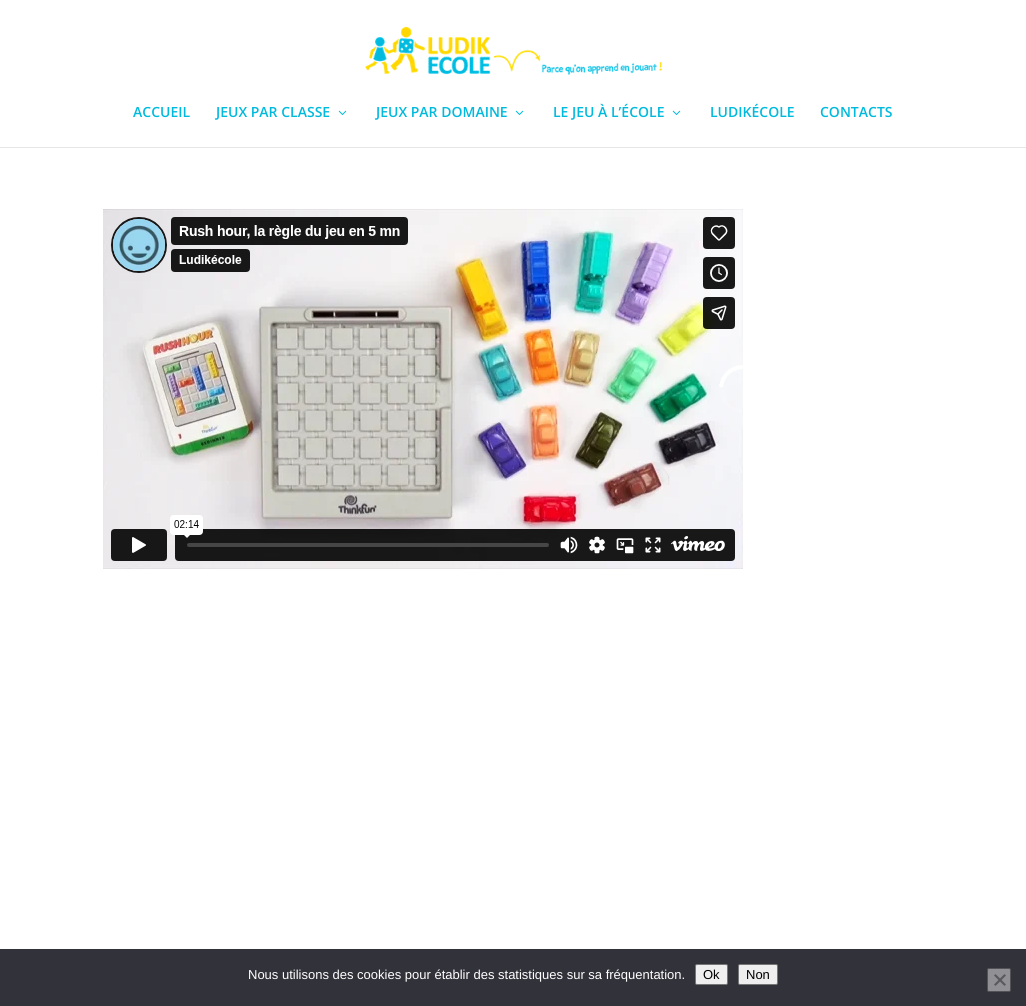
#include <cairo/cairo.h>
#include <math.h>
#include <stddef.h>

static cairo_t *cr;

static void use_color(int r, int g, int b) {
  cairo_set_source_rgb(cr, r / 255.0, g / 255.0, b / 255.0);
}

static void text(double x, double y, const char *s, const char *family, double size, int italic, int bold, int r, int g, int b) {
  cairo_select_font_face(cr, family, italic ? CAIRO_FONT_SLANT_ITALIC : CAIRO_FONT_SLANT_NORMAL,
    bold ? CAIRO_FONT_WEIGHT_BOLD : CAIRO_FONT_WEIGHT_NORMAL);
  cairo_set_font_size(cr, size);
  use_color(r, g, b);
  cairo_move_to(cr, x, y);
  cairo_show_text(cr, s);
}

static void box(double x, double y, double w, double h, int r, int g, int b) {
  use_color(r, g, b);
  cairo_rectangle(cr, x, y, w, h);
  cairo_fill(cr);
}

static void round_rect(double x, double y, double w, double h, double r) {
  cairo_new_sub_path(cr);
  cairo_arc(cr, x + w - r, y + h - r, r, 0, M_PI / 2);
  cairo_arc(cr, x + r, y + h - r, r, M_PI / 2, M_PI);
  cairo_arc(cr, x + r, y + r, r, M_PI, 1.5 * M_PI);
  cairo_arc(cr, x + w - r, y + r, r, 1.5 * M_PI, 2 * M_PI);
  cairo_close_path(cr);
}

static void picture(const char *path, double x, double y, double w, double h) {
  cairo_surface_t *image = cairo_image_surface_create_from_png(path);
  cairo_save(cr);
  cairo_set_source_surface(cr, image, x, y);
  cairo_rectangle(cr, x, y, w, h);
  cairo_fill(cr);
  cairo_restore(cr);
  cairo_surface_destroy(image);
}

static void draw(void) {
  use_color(255, 255, 255);
  cairo_paint(cr);
  box(0, 147, 1026, 1, 230, 230, 230);
  picture("img_01.png", 365, 26, 298, 49);
  picture("img_02.png", 338, 110, 9, 5);
  picture("img_02.png", 515, 110, 9, 5);
  picture("img_02.png", 672, 110, 9, 5);
  picture("img_03.png", 103, 209, 640, 360);
  box(0, 949, 1026, 57, 50, 50, 58);
  use_color(239, 239, 239);
  round_rect(695.5, 964.5, 32, 20, 1.5);
  cairo_fill_preserve(cr);
  use_color(118, 118, 118);
  cairo_set_line_width(cr, 1);
  cairo_stroke(cr);
  use_color(239, 239, 239);
  round_rect(738.5, 964.5, 39, 20, 1.5);
  cairo_fill_preserve(cr);
  use_color(118, 118, 118);
  cairo_stroke(cr);
  use_color(145, 145, 149);
  round_rect(987.5, 968.5, 23, 23, 1.5);
  cairo_fill_preserve(cr);
  use_color(84, 84, 88);
  cairo_stroke(cr);
  use_color(89, 89, 93);
  cairo_new_path(cr);
  cairo_move_to(cr, 1004.5, 974);
  cairo_line_to(cr, 1006, 975.5);
  cairo_line_to(cr, 995.5, 986);
  cairo_line_to(cr, 994, 984.5);
  cairo_close_path(cr);
  cairo_fill(cr);
  cairo_new_path(cr);
  cairo_move_to(cr, 994, 975.5);
  cairo_line_to(cr, 995.5, 974);
  cairo_line_to(cr, 1006, 984.5);
  cairo_line_to(cr, 1004.5, 986);
  cairo_close_path(cr);
  cairo_fill(cr);
  text(133, 117, "ACCUEIL", "Open Sans SemiBold", 14, 0, 0, 0, 186, 221);
  text(216, 117, "JEUX PAR CLASSE", "Open Sans SemiBold", 14, 0, 0, 0, 186, 221);
  text(376, 117, "JEUX PAR DOMAINE", "Open Sans SemiBold", 14, 0, 0, 0, 186, 221);
  text(553, 117, "LE JEU À L’ÉCOLE", "Open Sans SemiBold", 14, 0, 0, 0, 186, 221);
  text(710, 117, "LUDIKÉCOLE", "Open Sans SemiBold", 14, 0, 0, 0, 186, 221);
  text(820, 117, "CONTACTS", "Open Sans SemiBold", 14, 0, 0, 0, 186, 221);
  text(248, 979, "Nous utilisons des cookies pour établir des statistiques sur sa fréquentation.", "Liberation Sans", 13, 0, 0, 255, 255, 255);
  text(703, 979, "Ok", "Liberation Sans", 13, 0, 0, 0, 0, 0);
  text(746, 979, "Non", "Liberation Sans", 13, 0, 0, 0, 0, 0);
}

int main(void) {
  cairo_surface_t *surface = cairo_image_surface_create(CAIRO_FORMAT_RGB24, 1026, 1006);
  cr = cairo_create(surface);
  cairo_font_options_t *options = cairo_font_options_create();
  cairo_font_options_set_hint_metrics(options, CAIRO_HINT_METRICS_OFF);
  cairo_font_options_set_hint_style(options, CAIRO_HINT_STYLE_NONE);
  cairo_set_font_options(cr, options);
  cairo_set_miter_limit(cr, 4);
  draw();
  cairo_surface_write_to_png(surface, "out.png");
  cairo_font_options_destroy(options);
  cairo_destroy(cr);
  cairo_surface_destroy(surface);
  return 0;
}
